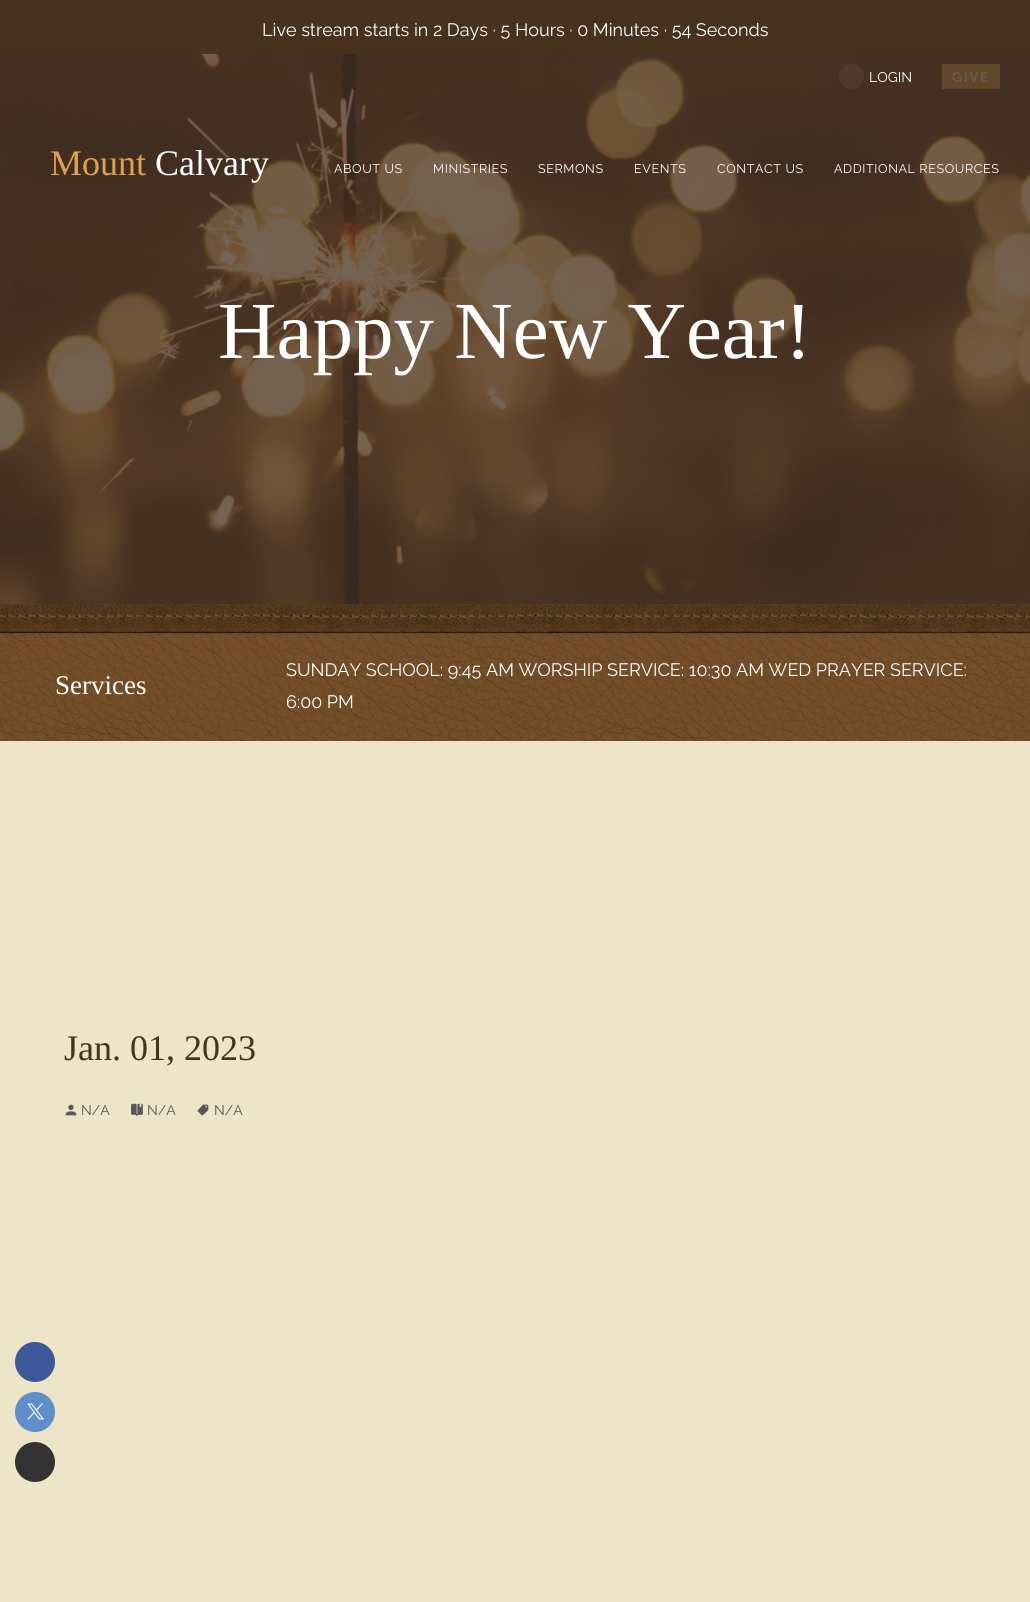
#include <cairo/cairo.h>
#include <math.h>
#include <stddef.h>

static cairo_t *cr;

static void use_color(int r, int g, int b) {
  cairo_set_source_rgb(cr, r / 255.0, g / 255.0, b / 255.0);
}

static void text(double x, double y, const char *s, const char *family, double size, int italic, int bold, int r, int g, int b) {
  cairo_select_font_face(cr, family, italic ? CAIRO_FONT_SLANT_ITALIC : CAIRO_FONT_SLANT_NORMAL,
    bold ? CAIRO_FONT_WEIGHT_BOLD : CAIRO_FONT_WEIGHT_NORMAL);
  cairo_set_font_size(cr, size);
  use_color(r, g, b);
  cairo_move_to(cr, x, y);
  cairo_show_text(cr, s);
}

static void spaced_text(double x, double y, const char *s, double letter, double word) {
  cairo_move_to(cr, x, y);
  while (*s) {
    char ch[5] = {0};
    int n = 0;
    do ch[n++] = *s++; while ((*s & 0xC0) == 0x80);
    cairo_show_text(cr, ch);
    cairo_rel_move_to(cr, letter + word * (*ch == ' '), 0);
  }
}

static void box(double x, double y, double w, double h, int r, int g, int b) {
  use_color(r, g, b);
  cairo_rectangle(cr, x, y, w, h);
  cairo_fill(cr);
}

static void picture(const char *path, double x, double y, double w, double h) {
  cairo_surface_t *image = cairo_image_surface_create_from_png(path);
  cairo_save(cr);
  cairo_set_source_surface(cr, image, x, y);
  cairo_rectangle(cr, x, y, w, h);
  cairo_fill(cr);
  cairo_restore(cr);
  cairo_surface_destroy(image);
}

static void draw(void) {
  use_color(255, 255, 255);
  cairo_paint(cr);
  box(0, 0, 1030, 54, 71, 50, 30);
  picture("img_01.png", 0, 54, 1030, 550);
  use_color(79, 59, 45);
  cairo_arc(cr, 851.5, 76.5, 12.5, 0, 2 * M_PI);
  cairo_fill(cr);
  box(942, 64, 58, 25, 99, 71, 43);
  box(0, 604, 1030, 137, 116, 79, 41);
  picture("img_02.png", 0, 604, 1030, 137);
  box(0, 741, 1030, 861, 238, 228, 199);
  picture("img_03.png", 65, 1104, 12, 12);
  picture("img_04.png", 131, 1103, 12, 14);
  picture("img_05.png", 197, 1104, 12, 12);
  use_color(60, 87, 154);
  cairo_arc(cr, 35, 1362, 20, 0, 2 * M_PI);
  cairo_fill(cr);
  use_color(95, 143, 203);
  cairo_arc(cr, 35, 1412, 20, 0, 2 * M_PI);
  cairo_fill(cr);
  picture("img_06.png", 27, 1403, 17, 17);
  use_color(51, 51, 51);
  cairo_arc(cr, 35, 1462, 20, 0, 2 * M_PI);
  cairo_fill(cr);
  text(262, 36, "Live stream starts in 2 Days · 5 Hours · 0 Minutes · 54 Seconds", "Raleway", 18, 0, 0, 255, 255, 255);
  text(50, 175, "Mount", "Liberation Serif", 36, 0, 0, 221, 162, 79);
  text(155, 175, "Calvary", "Liberation Serif", 36, 0, 0, 255, 255, 255);
  text(869, 82, "LOGIN", "Raleway", 14, 0, 0, 255, 255, 255);
  cairo_select_font_face(cr, "Raleway", CAIRO_FONT_SLANT_NORMAL, CAIRO_FONT_WEIGHT_BOLD);
  use_color(106, 89, 78);
  spaced_text(952, 82, "GIVE", 1.5, 0);
  cairo_select_font_face(cr, "Raleway", CAIRO_FONT_SLANT_NORMAL, CAIRO_FONT_WEIGHT_NORMAL);
  cairo_set_font_size(cr, 12.6);
  use_color(255, 255, 255);
  spaced_text(334, 173, "ABOUT US", 0.6, 0);
  spaced_text(433, 173, "MINISTRIES", 0.6, 0);
  spaced_text(538, 173, "SERMONS", 0.6, 0);
  spaced_text(634, 173, "EVENTS", 0.6, 0);
  spaced_text(717, 173, "CONTACT US", 0.6, 0);
  spaced_text(834, 173, "ADDITIONAL RESOURCES", 0.6, 0);
  text(218, 358, "Happy New Year!", "Liberation Serif", 81, 0, 0, 255, 255, 255);
  text(55, 694, "Services", "Liberation Serif", 27, 0, 0, 255, 255, 255);
  text(286, 676, "SUNDAY SCHOOL: 9:45 AM WORSHIP SERVICE: 10:30 AM WED PRAYER SERVICE:", "Raleway", 18, 0, 0, 255, 255, 255);
  text(286, 708, "6:00 PM", "Raleway", 18, 0, 0, 255, 255, 255);
  text(64, 1060, "Jan. 01, 2023", "Liberation Serif", 36, 0, 0, 71, 50, 30);
  text(81, 1115, "N/A", "Raleway", 14, 0, 0, 87, 87, 87);
  text(147, 1115, "N/A", "Raleway", 14, 0, 0, 87, 87, 87);
  text(214, 1115, "N/A", "Raleway", 14, 0, 0, 87, 87, 87);
}

int main(void) {
  cairo_surface_t *surface = cairo_image_surface_create(CAIRO_FORMAT_RGB24, 1030, 1602);
  cr = cairo_create(surface);
  cairo_font_options_t *options = cairo_font_options_create();
  cairo_font_options_set_hint_metrics(options, CAIRO_HINT_METRICS_OFF);
  cairo_font_options_set_hint_style(options, CAIRO_HINT_STYLE_NONE);
  cairo_set_font_options(cr, options);
  cairo_set_miter_limit(cr, 4);
  draw();
  cairo_surface_write_to_png(surface, "out.png");
  cairo_font_options_destroy(options);
  cairo_destroy(cr);
  cairo_surface_destroy(surface);
  return 0;
}
